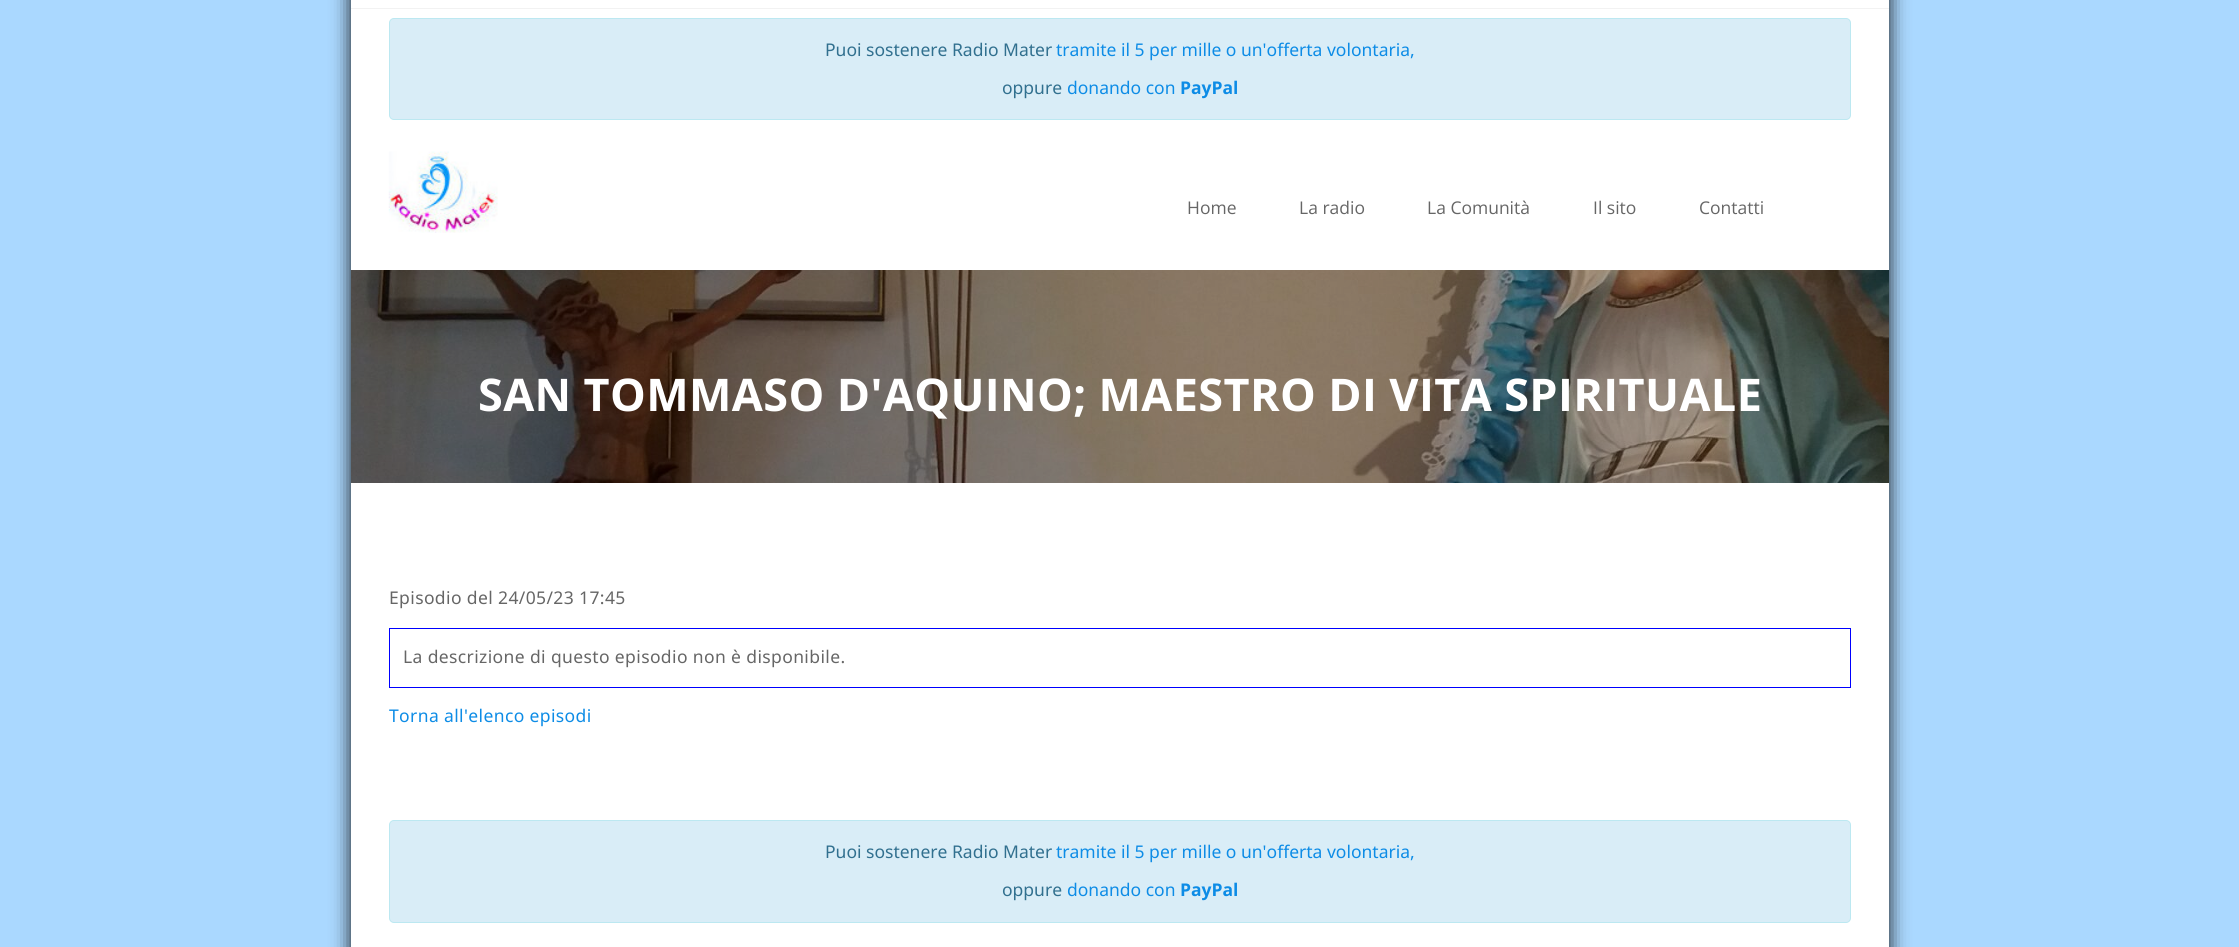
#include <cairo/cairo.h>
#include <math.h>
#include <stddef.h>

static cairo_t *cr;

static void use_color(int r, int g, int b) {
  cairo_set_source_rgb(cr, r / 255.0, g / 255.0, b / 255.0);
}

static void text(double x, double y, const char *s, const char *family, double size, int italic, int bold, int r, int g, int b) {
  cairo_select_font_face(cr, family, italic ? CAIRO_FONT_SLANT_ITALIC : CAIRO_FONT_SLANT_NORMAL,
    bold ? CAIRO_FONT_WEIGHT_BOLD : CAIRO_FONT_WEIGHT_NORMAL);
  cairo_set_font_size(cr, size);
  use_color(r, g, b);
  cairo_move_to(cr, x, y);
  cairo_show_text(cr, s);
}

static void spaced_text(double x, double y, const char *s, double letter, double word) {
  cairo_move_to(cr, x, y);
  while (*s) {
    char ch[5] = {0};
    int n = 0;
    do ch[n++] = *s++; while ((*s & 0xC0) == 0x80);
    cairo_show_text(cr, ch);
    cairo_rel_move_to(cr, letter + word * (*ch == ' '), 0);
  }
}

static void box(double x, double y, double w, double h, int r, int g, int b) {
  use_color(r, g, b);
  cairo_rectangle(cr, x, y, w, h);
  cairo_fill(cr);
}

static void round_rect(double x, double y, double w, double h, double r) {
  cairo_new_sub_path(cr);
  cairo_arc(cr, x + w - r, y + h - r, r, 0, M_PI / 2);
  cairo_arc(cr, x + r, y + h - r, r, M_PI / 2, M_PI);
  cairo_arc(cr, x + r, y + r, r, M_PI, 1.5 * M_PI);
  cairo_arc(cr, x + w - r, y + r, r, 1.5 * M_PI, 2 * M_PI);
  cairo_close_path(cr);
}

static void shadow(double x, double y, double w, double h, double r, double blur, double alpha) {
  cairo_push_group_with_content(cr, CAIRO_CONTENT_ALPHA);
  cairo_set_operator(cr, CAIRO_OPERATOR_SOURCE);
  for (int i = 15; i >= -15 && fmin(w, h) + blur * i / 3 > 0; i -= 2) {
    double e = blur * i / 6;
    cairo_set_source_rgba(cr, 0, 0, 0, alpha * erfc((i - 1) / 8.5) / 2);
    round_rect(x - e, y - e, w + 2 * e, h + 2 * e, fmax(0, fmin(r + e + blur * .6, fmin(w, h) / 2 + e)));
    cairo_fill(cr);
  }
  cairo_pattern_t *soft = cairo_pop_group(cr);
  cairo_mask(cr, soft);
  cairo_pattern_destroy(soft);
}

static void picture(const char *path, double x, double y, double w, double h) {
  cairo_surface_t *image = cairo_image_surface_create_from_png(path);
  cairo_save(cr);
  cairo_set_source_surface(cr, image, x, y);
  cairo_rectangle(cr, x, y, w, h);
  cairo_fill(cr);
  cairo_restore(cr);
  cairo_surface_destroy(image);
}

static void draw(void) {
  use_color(170, 216, 255);
  cairo_paint(cr);
  box(351, 9, 1538, 938, 255, 255, 255);
  picture("img_02.png", 351, 270, 1538, 213);
  cairo_save(cr);
  cairo_set_fill_rule(cr, CAIRO_FILL_RULE_EVEN_ODD);
  cairo_new_path(cr);
  cairo_move_to(cr, 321, 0);
  cairo_line_to(cr, 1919, 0);
  cairo_line_to(cr, 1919, 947);
  cairo_line_to(cr, 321, 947);
  cairo_close_path(cr);
  cairo_move_to(cr, 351, -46);
  cairo_line_to(cr, 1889, -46);
  cairo_line_to(cr, 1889, 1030);
  cairo_line_to(cr, 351, 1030);
  cairo_close_path(cr);
  cairo_clip(cr);
  use_color(18, 18, 18);
  shadow(351, -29, 1538, 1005, 0, 9.5, 1);
  cairo_restore(cr);
  box(351, 0, 1538, 8, 255, 255, 255);
  box(351, 8, 1538, 1, 242, 242, 242);
  use_color(217, 237, 247);
  round_rect(389.5, 18.5, 1461, 101, 4.5);
  cairo_fill_preserve(cr);
  use_color(188, 232, 241);
  cairo_set_line_width(cr, 1);
  cairo_stroke(cr);
  box(351, 145, 1538, 125, 255, 255, 255);
  picture("img_01.png", 388, 151, 110, 82);
  cairo_set_source_rgba(cr, 0, 0, 0, 0.25);
  cairo_rectangle(cr, 351, 270, 1538, 213);
  cairo_fill(cr);
  cairo_rectangle(cr, 389.5, 628.5, 1461, 59);
  use_color(0, 0, 255);
  cairo_stroke(cr);
  use_color(217, 237, 247);
  round_rect(389.5, 820.5, 1461, 102, 4.5);
  cairo_fill_preserve(cr);
  use_color(188, 232, 241);
  cairo_stroke(cr);
  text(825, 56, "Puoi sostenere Radio Mater", "Noto Sans", 17.5, 0, 0, 49, 112, 143);
  text(1056, 56, "tramite il 5 per mille o un'offerta volontaria,", "Noto Sans", 17.5, 0, 0, 13, 140, 230);
  text(1002, 94, "oppure", "Noto Sans", 17.5, 0, 0, 49, 112, 143);
  text(1067, 94, "donando con", "Noto Sans", 17.5, 0, 0, 13, 140, 230);
  text(1180, 94, "PayPal", "Open Sans", 17.5, 0, 1, 13, 140, 230);
  text(1187, 214, "Home", "Open Sans", 17.5, 0, 0, 102, 102, 102);
  text(1299, 214, "La radio", "Open Sans", 17.5, 0, 0, 102, 102, 102);
  text(1427, 214, "La Comunità", "Open Sans", 17.5, 0, 0, 102, 102, 102);
  text(1593, 214, "Il sito", "Open Sans", 17.5, 0, 0, 102, 102, 102);
  text(1699, 214, "Contatti", "Open Sans", 17.5, 0, 0, 102, 102, 102);
  cairo_select_font_face(cr, "Open Sans", CAIRO_FONT_SLANT_NORMAL, CAIRO_FONT_WEIGHT_BOLD);
  cairo_set_font_size(cr, 45);
  use_color(255, 255, 255);
  spaced_text(478, 411, "SAN TOMMASO D'AQUINO; MAESTRO DI VITA SPIRITUALE", 0.38, 0);
  cairo_select_font_face(cr, "Noto Sans", CAIRO_FONT_SLANT_NORMAL, CAIRO_FONT_WEIGHT_NORMAL);
  cairo_set_font_size(cr, 17.5);
  use_color(102, 102, 102);
  spaced_text(389, 604, "Episodio del 24/05/23 17:45", 0.38, 0);
  spaced_text(403, 663, "La descrizione di questo episodio non è disponibile.", 0.38, 0);
  use_color(13, 140, 230);
  spaced_text(389, 722, "Torna all'elenco episodi", 0.38, 0);
  text(825, 858, "Puoi sostenere Radio Mater", "Noto Sans", 17.5, 0, 0, 49, 112, 143);
  text(1056, 858, "tramite il 5 per mille o un'offerta volontaria,", "Noto Sans", 17.5, 0, 0, 13, 140, 230);
  text(1002, 896, "oppure", "Noto Sans", 17.5, 0, 0, 49, 112, 143);
  text(1067, 896, "donando con", "Noto Sans", 17.5, 0, 0, 13, 140, 230);
  text(1180, 896, "PayPal", "Open Sans", 17.5, 0, 1, 13, 140, 230);
}

int main(void) {
  cairo_surface_t *surface = cairo_image_surface_create(CAIRO_FORMAT_RGB24, 2239, 947);
  cr = cairo_create(surface);
  cairo_font_options_t *options = cairo_font_options_create();
  cairo_font_options_set_hint_metrics(options, CAIRO_HINT_METRICS_OFF);
  cairo_font_options_set_hint_style(options, CAIRO_HINT_STYLE_NONE);
  cairo_set_font_options(cr, options);
  cairo_set_miter_limit(cr, 4);
  draw();
  cairo_surface_write_to_png(surface, "out.png");
  cairo_font_options_destroy(options);
  cairo_destroy(cr);
  cairo_surface_destroy(surface);
  return 0;
}
